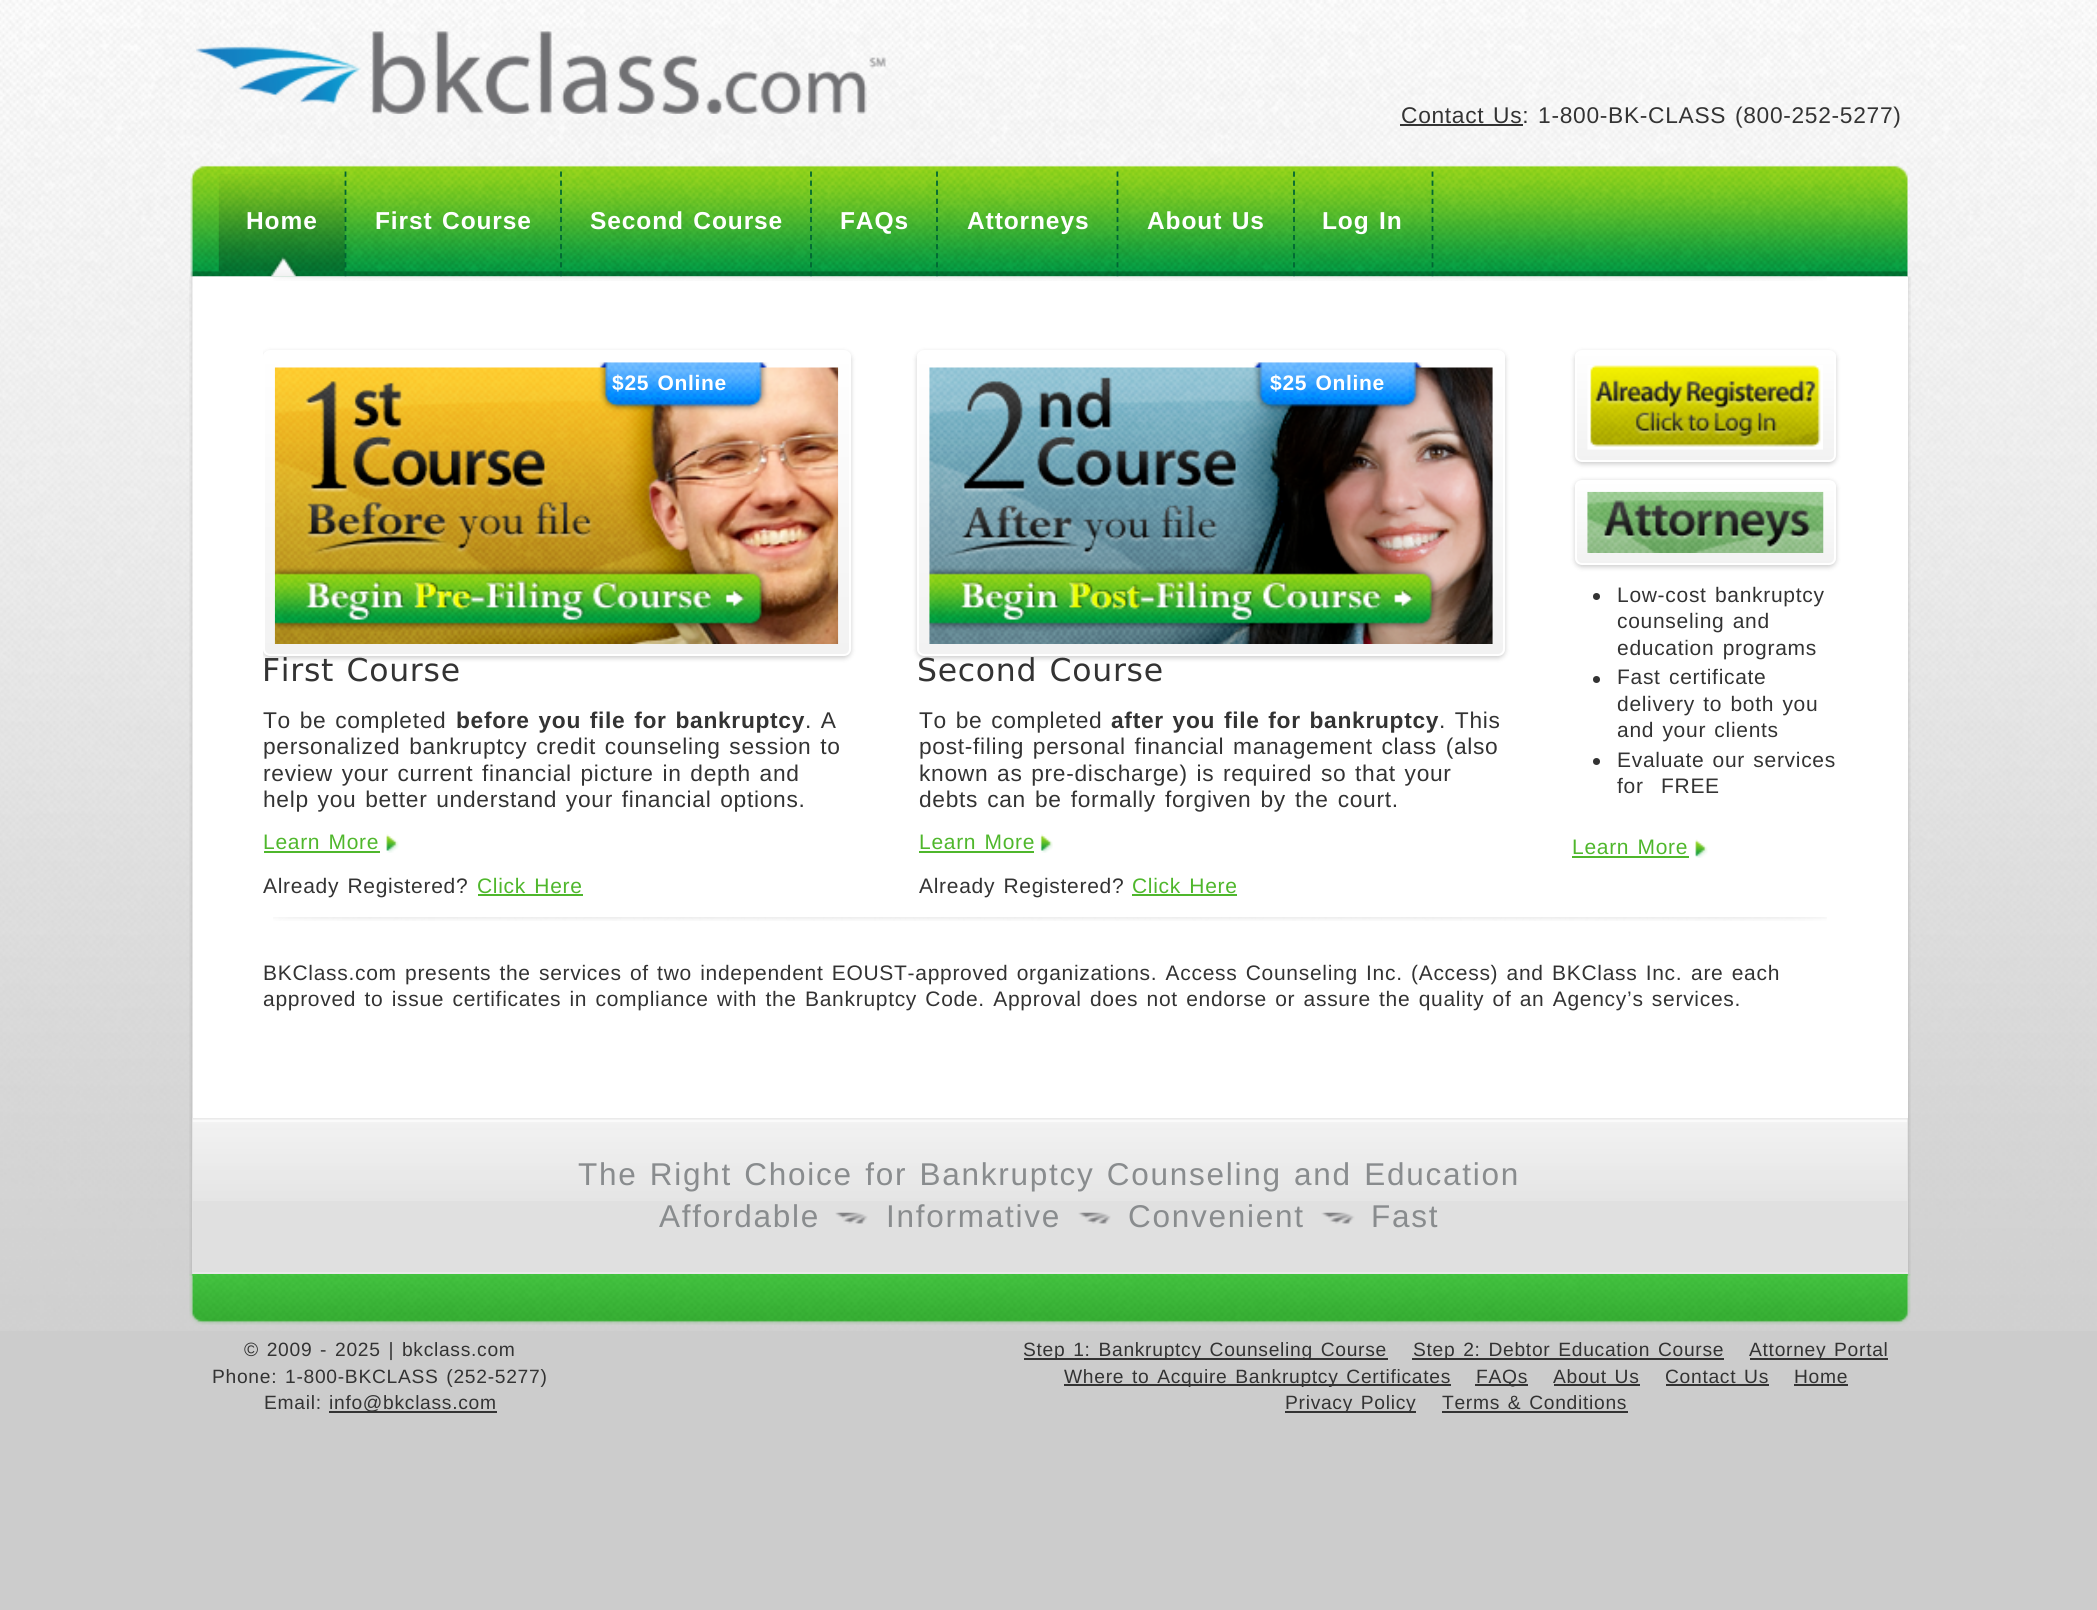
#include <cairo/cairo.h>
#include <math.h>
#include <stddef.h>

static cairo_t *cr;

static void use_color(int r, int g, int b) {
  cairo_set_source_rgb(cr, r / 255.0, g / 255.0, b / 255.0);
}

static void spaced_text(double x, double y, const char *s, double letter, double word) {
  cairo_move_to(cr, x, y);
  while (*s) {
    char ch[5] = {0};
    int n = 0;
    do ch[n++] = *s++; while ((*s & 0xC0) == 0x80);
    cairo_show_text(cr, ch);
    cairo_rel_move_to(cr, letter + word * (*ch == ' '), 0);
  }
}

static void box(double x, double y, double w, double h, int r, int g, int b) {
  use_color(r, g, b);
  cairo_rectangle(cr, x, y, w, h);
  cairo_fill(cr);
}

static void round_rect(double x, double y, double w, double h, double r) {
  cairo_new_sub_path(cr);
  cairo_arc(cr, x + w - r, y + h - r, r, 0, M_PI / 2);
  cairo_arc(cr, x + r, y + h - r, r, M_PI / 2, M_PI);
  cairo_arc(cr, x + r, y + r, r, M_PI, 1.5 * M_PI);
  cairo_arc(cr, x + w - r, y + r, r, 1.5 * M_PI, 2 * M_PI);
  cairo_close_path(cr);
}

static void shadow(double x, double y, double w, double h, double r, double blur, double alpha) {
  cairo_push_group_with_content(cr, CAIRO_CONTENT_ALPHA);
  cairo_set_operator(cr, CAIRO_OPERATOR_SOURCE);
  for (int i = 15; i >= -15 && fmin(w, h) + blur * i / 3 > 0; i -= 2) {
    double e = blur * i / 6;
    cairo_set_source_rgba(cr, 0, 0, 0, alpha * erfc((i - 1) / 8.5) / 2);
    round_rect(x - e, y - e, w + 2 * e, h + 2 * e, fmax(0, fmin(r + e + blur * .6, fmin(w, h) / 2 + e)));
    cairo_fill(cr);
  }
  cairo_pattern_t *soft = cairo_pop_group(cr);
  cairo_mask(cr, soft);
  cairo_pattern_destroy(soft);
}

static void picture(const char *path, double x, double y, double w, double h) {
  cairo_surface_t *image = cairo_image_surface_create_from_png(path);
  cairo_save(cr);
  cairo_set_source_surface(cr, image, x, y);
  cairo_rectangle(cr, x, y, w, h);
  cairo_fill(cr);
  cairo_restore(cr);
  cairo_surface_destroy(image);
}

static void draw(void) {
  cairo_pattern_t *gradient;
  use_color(204, 204, 204);
  cairo_paint(cr);
  picture("img_01.png", 0, 0, 2097, 1331);
  picture("img_02.png", 190, 165, 1718, 112);
  picture("img_03.png", 196, 31, 690, 83);
  box(1400, 124, 123, 2, 51, 51, 51);
  cairo_new_path(cr);
  cairo_move_to(cr, 345.5, 171.5);
  cairo_line_to(cr, 345.5, 276.5);
  use_color(0, 102, 51);
  cairo_set_line_width(cr, 1.8);
  cairo_set_dash(cr, (double[]){5.25, 3.82}, 2, 0);
  cairo_stroke(cr);
  picture("img_04.png", 218, 174, 127, 103);
  cairo_new_path(cr);
  cairo_move_to(cr, 561, 171.5);
  cairo_line_to(cr, 561, 276.5);
  cairo_stroke(cr);
  cairo_new_path(cr);
  cairo_move_to(cr, 811, 171.5);
  cairo_line_to(cr, 811, 276.5);
  cairo_stroke(cr);
  cairo_new_path(cr);
  cairo_move_to(cr, 937, 171.5);
  cairo_line_to(cr, 937, 276.5);
  cairo_stroke(cr);
  cairo_new_path(cr);
  cairo_move_to(cr, 1117.5, 171.5);
  cairo_line_to(cr, 1117.5, 276.5);
  cairo_stroke(cr);
  cairo_new_path(cr);
  cairo_move_to(cr, 1294, 171.5);
  cairo_line_to(cr, 1294, 276.5);
  cairo_stroke(cr);
  cairo_new_path(cr);
  cairo_move_to(cr, 1432.5, 171.5);
  cairo_line_to(cr, 1432.5, 276.5);
  cairo_stroke(cr);
  picture("img_05.png", 189, 276, 1722, 998);
  box(1907, 277, 1, 841, 255, 255, 255);
  picture("img_06.png", 273, 277, 1554, 4);
  cairo_save(cr);
  cairo_rectangle(cr, 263, 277, 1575, 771);
  cairo_clip(cr);
  use_color(0, 0, 0);
  shadow(263, 352, 588, 306, 7, 2.5, 0.2);
  cairo_restore(cr);
  cairo_save(cr);
  round_rect(263, 350, 588, 306, 7);
  cairo_clip(cr);
  gradient = cairo_pattern_create_linear(264, 655, 264, 352);
  cairo_pattern_add_color_stop_rgba(gradient, 0, 0.949, 0.949, 0.949, 1);
  cairo_pattern_add_color_stop_rgba(gradient, 1, 1, 1, 1, 1);
  cairo_set_source(cr, gradient);
  cairo_pattern_destroy(gradient);
  cairo_rectangle(cr, 263, 352, 588, 303);
  cairo_fill(cr);
  cairo_restore(cr);
  round_rect(264, 351, 586, 304, 6);
  cairo_set_line_width(cr, 2);
  cairo_set_dash(cr, NULL, 0, 0);
  cairo_stroke(cr);
  picture("img_07.png", 274, 362, 565, 282);
  box(264, 851, 116, 2, 79, 183, 44);
  picture("img_08.png", 386, 834, 13, 19);
  box(478, 894, 105, 2, 79, 183, 44);
  use_color(0, 0, 0);
  shadow(917, 352, 588, 306, 7, 2.5, 0.2);
  cairo_save(cr);
  round_rect(917, 350, 588, 306, 7);
  cairo_clip(cr);
  gradient = cairo_pattern_create_linear(919, 655, 919, 352);
  cairo_pattern_add_color_stop_rgba(gradient, 0, 0.949, 0.949, 0.949, 1);
  cairo_pattern_add_color_stop_rgba(gradient, 1, 1, 1, 1, 1);
  cairo_set_source(cr, gradient);
  cairo_pattern_destroy(gradient);
  cairo_rectangle(cr, 917, 352, 588, 303);
  cairo_fill(cr);
  cairo_restore(cr);
  round_rect(918, 351, 586, 304, 6);
  use_color(255, 255, 255);
  cairo_stroke(cr);
  picture("img_09.png", 929, 362, 564, 282);
  box(919, 851, 115, 2, 79, 183, 44);
  picture("img_10.png", 1040, 834, 13, 19);
  box(1132, 894, 105, 2, 79, 183, 44);
  use_color(0, 0, 0);
  shadow(1575, 352, 261, 112, 7, 2.5, 0.2);
  cairo_save(cr);
  round_rect(1575, 350, 261, 112, 7);
  cairo_clip(cr);
  gradient = cairo_pattern_create_linear(1577, 460, 1577, 352);
  cairo_pattern_add_color_stop_rgba(gradient, 0, 0.949, 0.949, 0.949, 1);
  cairo_pattern_add_color_stop_rgba(gradient, 1, 1, 1, 1, 1);
  cairo_set_source(cr, gradient);
  cairo_pattern_destroy(gradient);
  cairo_rectangle(cr, 1575, 352, 261, 108);
  cairo_fill(cr);
  cairo_restore(cr);
  round_rect(1576, 351, 259, 110, 6);
  use_color(255, 255, 255);
  cairo_stroke(cr);
  picture("img_11.png", 1587, 365, 236, 85);
  use_color(0, 0, 0);
  shadow(1575, 481, 261, 86, 7, 2.5, 0.2);
  cairo_save(cr);
  round_rect(1575, 480, 261, 85, 7);
  cairo_clip(cr);
  gradient = cairo_pattern_create_linear(1577, 564, 1577, 481);
  cairo_pattern_add_color_stop_rgba(gradient, 0, 0.949, 0.949, 0.949, 1);
  cairo_pattern_add_color_stop_rgba(gradient, 1, 1, 1, 1, 1);
  cairo_set_source(cr, gradient);
  cairo_pattern_destroy(gradient);
  cairo_rectangle(cr, 1575, 481, 261, 83);
  cairo_fill(cr);
  cairo_restore(cr);
  round_rect(1576, 481, 259, 83, 6);
  use_color(255, 255, 255);
  cairo_stroke(cr);
  picture("img_12.png", 1587, 491, 237, 62);
  use_color(51, 51, 51);
  cairo_arc(cr, 1596.5, 596.5, 3.5, 0, 2 * M_PI);
  cairo_fill(cr);
  cairo_arc(cr, 1596.5, 679.5, 3.5, 0, 2 * M_PI);
  cairo_fill(cr);
  cairo_arc(cr, 1596.5, 761.5, 3.5, 0, 2 * M_PI);
  cairo_fill(cr);
  box(1572, 856, 117, 2, 79, 183, 44);
  picture("img_13.png", 1695, 839, 13, 19);
  picture("img_14.png", 273, 917, 1554, 4);
  box(193, 1118, 1714, 154, 224, 224, 224);
  picture("img_15.png", 192, 1118, 1716, 83);
  box(193, 1272, 1715, 2, 232, 232, 232);
  picture("img_16.png", 835, 1212, 33, 12);
  picture("img_17.png", 1078, 1212, 33, 12);
  picture("img_18.png", 1321, 1212, 34, 12);
  picture("img_19.png", 189, 1274, 1722, 51);
  picture("img_20.png", 189, 1274, 1722, 2);
  box(329, 1411, 168, 2, 51, 51, 51);
  box(1024, 1358, 364, 2, 51, 51, 51);
  box(1412, 1358, 312, 2, 51, 51, 51);
  box(1750, 1358, 138, 2, 51, 51, 51);
  box(1064, 1384, 387, 2, 51, 51, 51);
  box(1475, 1384, 53, 2, 51, 51, 51);
  box(1554, 1384, 86, 2, 51, 51, 51);
  box(1666, 1384, 103, 2, 51, 51, 51);
  box(1794, 1384, 54, 2, 51, 51, 51);
  box(1285, 1411, 131, 2, 51, 51, 51);
  box(1442, 1411, 186, 2, 51, 51, 51);
  cairo_select_font_face(cr, "Liberation Sans", CAIRO_FONT_SLANT_NORMAL, CAIRO_FONT_WEIGHT_NORMAL);
  cairo_set_font_size(cr, 22.75);
  spaced_text(1401, 123, "Contact Us: 1-800-BK-CLASS (800-252-5277)", 0.7, 1.75);
  cairo_select_font_face(cr, "Liberation Sans", CAIRO_FONT_SLANT_NORMAL, CAIRO_FONT_WEIGHT_BOLD);
  cairo_set_font_size(cr, 24.5);
  use_color(255, 255, 255);
  spaced_text(246, 229, "Home", 0.9, 0);
  spaced_text(375, 229, "First Course", 0.9, 1.75);
  spaced_text(590, 229, "Second Course", 0.9, 1.75);
  spaced_text(840, 229, "FAQs", 0.9, 0);
  spaced_text(967, 229, "Attorneys", 0.9, 0);
  spaced_text(1147, 229, "About Us", 0.9, 1.75);
  spaced_text(1322, 229, "Log In", 0.9, 1.75);
  cairo_set_font_size(cr, 21);
  spaced_text(612, 390, "$25 Online", 0.7, 1.75);
  cairo_select_font_face(cr, "DejaVu Sans", CAIRO_FONT_SLANT_NORMAL, CAIRO_FONT_WEIGHT_NORMAL);
  cairo_set_font_size(cr, 31.5);
  use_color(51, 51, 51);
  spaced_text(262, 681, "First Course", 0.7, 1.75);
  cairo_select_font_face(cr, "Liberation Sans", CAIRO_FONT_SLANT_NORMAL, CAIRO_FONT_WEIGHT_NORMAL);
  cairo_set_font_size(cr, 22.75);
  spaced_text(263, 728, "To be completed", 0.7, 1.75);
  cairo_select_font_face(cr, "Liberation Sans", CAIRO_FONT_SLANT_NORMAL, CAIRO_FONT_WEIGHT_BOLD);
  spaced_text(456, 728, "before you file for bankruptcy", 0.7, 1.75);
  cairo_select_font_face(cr, "Liberation Sans", CAIRO_FONT_SLANT_NORMAL, CAIRO_FONT_WEIGHT_NORMAL);
  spaced_text(805, 728, ". A", 0.7, 1.75);
  spaced_text(263, 754, "personalized bankruptcy credit counseling session to", 0.7, 1.75);
  spaced_text(263, 781, "review your current financial picture in depth and", 0.7, 1.75);
  spaced_text(263, 807, "help you better understand your financial options.", 0.7, 1.75);
  cairo_set_font_size(cr, 21);
  use_color(79, 183, 44);
  spaced_text(263, 849, "Learn More", 0.7, 1.75);
  use_color(51, 51, 51);
  spaced_text(263, 893, "Already Registered?", 0.7, 1.75);
  use_color(79, 183, 44);
  spaced_text(477, 893, "Click Here", 0.7, 1.75);
  cairo_select_font_face(cr, "Liberation Sans", CAIRO_FONT_SLANT_NORMAL, CAIRO_FONT_WEIGHT_BOLD);
  use_color(255, 255, 255);
  spaced_text(1270, 390, "$25 Online", 0.7, 1.75);
  cairo_select_font_face(cr, "DejaVu Sans", CAIRO_FONT_SLANT_NORMAL, CAIRO_FONT_WEIGHT_NORMAL);
  cairo_set_font_size(cr, 31.5);
  use_color(51, 51, 51);
  spaced_text(917, 681, "Second Course", 0.7, 1.75);
  cairo_select_font_face(cr, "Liberation Sans", CAIRO_FONT_SLANT_NORMAL, CAIRO_FONT_WEIGHT_NORMAL);
  cairo_set_font_size(cr, 22.75);
  spaced_text(919, 728, "To be completed", 0.7, 1.75);
  cairo_select_font_face(cr, "Liberation Sans", CAIRO_FONT_SLANT_NORMAL, CAIRO_FONT_WEIGHT_BOLD);
  spaced_text(1111, 728, "after you file for bankruptcy", 0.7, 1.75);
  cairo_select_font_face(cr, "Liberation Sans", CAIRO_FONT_SLANT_NORMAL, CAIRO_FONT_WEIGHT_NORMAL);
  spaced_text(1439, 728, ". This", 0.7, 1.75);
  spaced_text(919, 754, "post-filing personal financial management class (also", 0.7, 1.75);
  spaced_text(919, 781, "known as pre-discharge) is required so that your", 0.7, 1.75);
  spaced_text(919, 807, "debts can be formally forgiven by the court.", 0.7, 2);
  cairo_set_font_size(cr, 21);
  use_color(79, 183, 44);
  spaced_text(919, 849, "Learn More", 0.7, 1.75);
  use_color(51, 51, 51);
  spaced_text(919, 893, "Already Registered?", 0.7, 1.75);
  use_color(79, 183, 44);
  spaced_text(1132, 893, "Click Here", 0.7, 1.75);
  use_color(51, 51, 51);
  spaced_text(1617, 602, "Low-cost bankruptcy", 0.7, 1.75);
  spaced_text(1617, 628, "counseling and", 0.7, 1.75);
  spaced_text(1617, 655, "education programs", 0.7, 1.75);
  spaced_text(1617, 684, "Fast certificate", 0.7, 1.75);
  spaced_text(1617, 711, "delivery to both you", 0.7, 1.75);
  spaced_text(1617, 737, "and your clients", 0.7, 1.75);
  spaced_text(1617, 767, "Evaluate our services", 0.7, 1.75);
  spaced_text(1617, 793, "for", 0.7, 0);
  spaced_text(1661, 793, "FREE", 0.7, 0);
  use_color(79, 183, 44);
  spaced_text(1572, 854, "Learn More", 0.7, 1.75);
  use_color(51, 51, 51);
  spaced_text(263, 980, "BKClass.com presents the services of two independent EOUST-approved organizations. Access Counseling Inc. (Access) and BKClass Inc.", 0.7, 1.75);
  spaced_text(1691, 980, "are each", 0.7, 1.75);
  spaced_text(263, 1006, "approved to issue certificates in compliance with the Bankruptcy Code. Approval does not endorse or assure the quality of an Agency’s services.", 0.7, 1.75);
  cairo_set_font_size(cr, 31.5);
  use_color(137, 140, 142);
  spaced_text(578, 1185, "The Right Choice for Bankruptcy Counseling and Education", 1.75, 1.75);
  spaced_text(659, 1227, "Affordable", 1.75, 0);
  spaced_text(886, 1227, "Informative", 1.75, 0);
  spaced_text(1128, 1227, "Convenient", 1.75, 0);
  spaced_text(1371, 1227, "Fast", 1.75, 0);
  cairo_set_font_size(cr, 19.25);
  use_color(51, 51, 51);
  spaced_text(244, 1356, "© 2009 - 2025 | bkclass.com", 0.7, 1.75);
  spaced_text(212, 1383, "Phone: 1-800-BKCLASS (252-5277)", 0.7, 1.75);
  spaced_text(264, 1409, "Email:", 0.7, 0);
  spaced_text(329, 1409, "info@bkclass.com", 0.7, 0);
  spaced_text(1023, 1356, "Step 1: Bankruptcy Counseling Course", 0.7, 1.75);
  spaced_text(1413, 1356, "Step 2: Debtor Education Course", 0.7, 1.75);
  spaced_text(1749, 1356, "Attorney Portal", 0.7, 1.75);
  spaced_text(1064, 1383, "Where to Acquire Bankruptcy Certificates", 0.7, 1.75);
  spaced_text(1476, 1383, "FAQs", 0.7, 0);
  spaced_text(1553, 1383, "About Us", 0.7, 1.75);
  spaced_text(1665, 1383, "Contact Us", 0.7, 1.75);
  spaced_text(1794, 1383, "Home", 0.7, 0);
  spaced_text(1285, 1409, "Privacy Policy", 0.7, 1.75);
  spaced_text(1442, 1409, "Terms & Conditions", 0.7, 1.75);
}

int main(void) {
  cairo_surface_t *surface = cairo_image_surface_create(CAIRO_FORMAT_RGB24, 2097, 1610);
  cr = cairo_create(surface);
  cairo_font_options_t *options = cairo_font_options_create();
  cairo_font_options_set_hint_metrics(options, CAIRO_HINT_METRICS_OFF);
  cairo_font_options_set_hint_style(options, CAIRO_HINT_STYLE_NONE);
  cairo_set_font_options(cr, options);
  cairo_set_miter_limit(cr, 4);
  draw();
  cairo_surface_write_to_png(surface, "out.png");
  cairo_font_options_destroy(options);
  cairo_destroy(cr);
  cairo_surface_destroy(surface);
  return 0;
}
